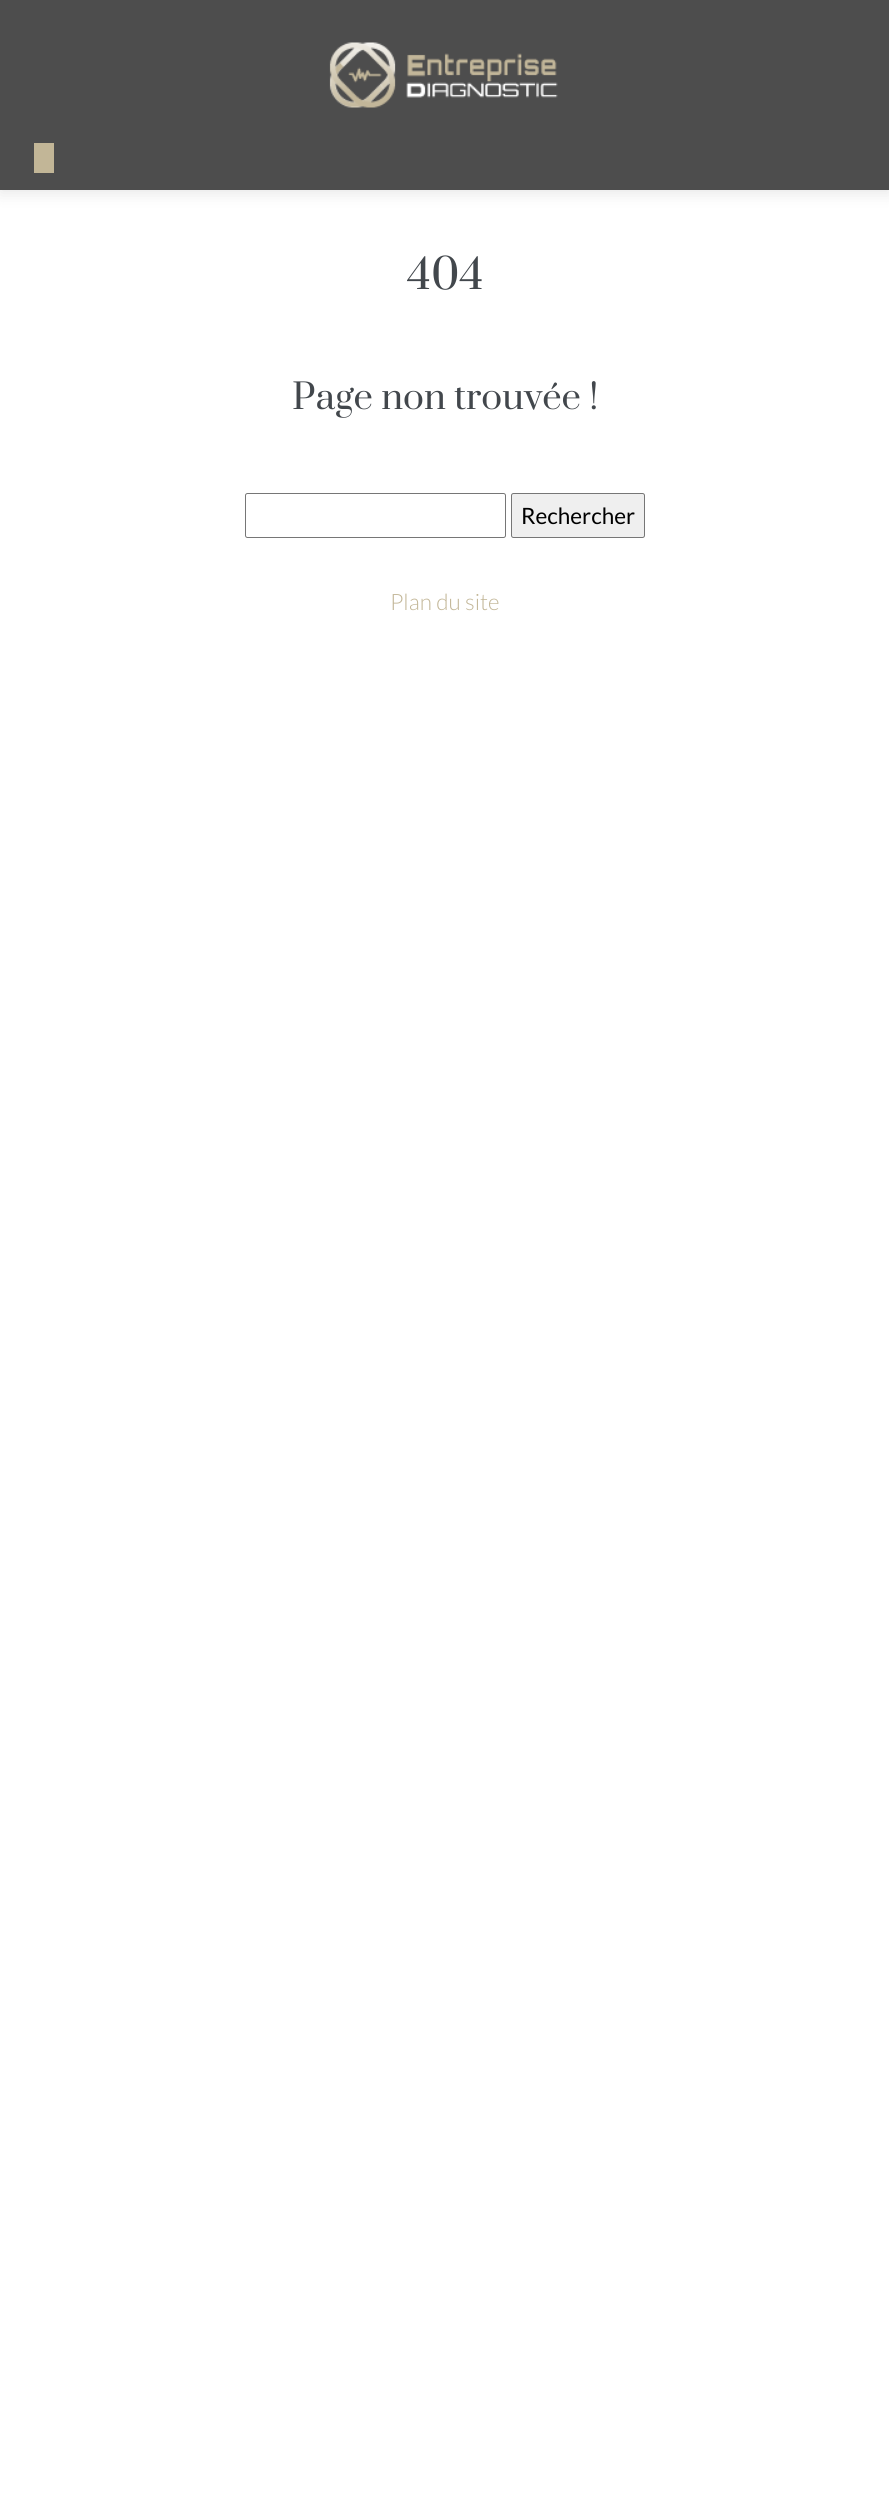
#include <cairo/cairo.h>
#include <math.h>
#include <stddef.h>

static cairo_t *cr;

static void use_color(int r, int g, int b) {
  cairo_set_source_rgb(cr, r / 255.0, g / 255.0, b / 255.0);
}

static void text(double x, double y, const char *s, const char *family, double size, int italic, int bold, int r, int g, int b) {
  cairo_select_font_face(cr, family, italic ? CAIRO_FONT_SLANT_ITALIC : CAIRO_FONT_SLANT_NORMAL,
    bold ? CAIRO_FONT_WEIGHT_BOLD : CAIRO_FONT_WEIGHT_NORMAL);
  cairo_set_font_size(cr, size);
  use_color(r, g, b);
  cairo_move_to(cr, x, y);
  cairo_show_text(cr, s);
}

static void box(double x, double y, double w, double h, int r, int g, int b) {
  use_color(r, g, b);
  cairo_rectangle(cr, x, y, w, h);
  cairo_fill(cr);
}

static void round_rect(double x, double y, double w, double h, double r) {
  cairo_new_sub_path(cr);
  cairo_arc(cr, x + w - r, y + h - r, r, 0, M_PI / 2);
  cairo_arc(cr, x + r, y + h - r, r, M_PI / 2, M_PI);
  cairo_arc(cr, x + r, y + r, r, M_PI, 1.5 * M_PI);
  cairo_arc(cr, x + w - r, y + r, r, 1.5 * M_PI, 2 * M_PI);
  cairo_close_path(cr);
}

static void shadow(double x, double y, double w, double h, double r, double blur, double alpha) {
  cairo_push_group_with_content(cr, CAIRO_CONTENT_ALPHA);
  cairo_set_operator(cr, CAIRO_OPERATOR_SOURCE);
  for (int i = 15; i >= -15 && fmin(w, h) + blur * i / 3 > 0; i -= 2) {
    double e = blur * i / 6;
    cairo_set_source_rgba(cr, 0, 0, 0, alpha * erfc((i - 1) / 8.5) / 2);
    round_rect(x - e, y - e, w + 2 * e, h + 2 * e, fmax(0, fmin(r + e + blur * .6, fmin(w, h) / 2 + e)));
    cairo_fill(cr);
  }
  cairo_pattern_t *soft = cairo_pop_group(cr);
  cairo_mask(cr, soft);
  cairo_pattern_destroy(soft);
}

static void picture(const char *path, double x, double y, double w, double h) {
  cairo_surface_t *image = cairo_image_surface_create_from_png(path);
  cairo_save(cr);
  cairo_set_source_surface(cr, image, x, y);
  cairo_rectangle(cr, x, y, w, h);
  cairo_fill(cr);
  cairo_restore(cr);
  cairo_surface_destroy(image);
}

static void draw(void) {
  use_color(255, 255, 255);
  cairo_paint(cr);
  use_color(0, 0, 0);
  shadow(0, 3, 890, 190, 0, 8, 0.1);
  box(0, 0, 889, 190, 77, 77, 77);
  picture("img_01.png", 329, 42, 229, 66);
  box(34, 143, 20, 30, 194, 182, 151);
  round_rect(245.5, 493.5, 260, 44, 2);
  use_color(118, 118, 118);
  cairo_set_line_width(cr, 1);
  cairo_stroke(cr);
  use_color(239, 239, 239);
  round_rect(511.5, 493.5, 133, 44, 2);
  cairo_fill_preserve(cr);
  use_color(118, 118, 118);
  cairo_stroke(cr);
  text(407, 289, "404", "Prata", 41, 0, 0, 66, 71, 76);
  text(292, 409, "Page non trouvée !", "Prata", 34.5, 0, 0, 66, 71, 76);
  text(521, 524, "Rechercher", "Lato", 22.5, 0, 0, 0, 0, 0);
  text(390, 610, "Plan du site", "Lato Light", 22.5, 0, 0, 194, 182, 151);
}

int main(void) {
  cairo_surface_t *surface = cairo_image_surface_create(CAIRO_FORMAT_RGB24, 889, 2498);
  cr = cairo_create(surface);
  cairo_font_options_t *options = cairo_font_options_create();
  cairo_font_options_set_hint_metrics(options, CAIRO_HINT_METRICS_OFF);
  cairo_font_options_set_hint_style(options, CAIRO_HINT_STYLE_NONE);
  cairo_set_font_options(cr, options);
  cairo_set_miter_limit(cr, 4);
  draw();
  cairo_surface_write_to_png(surface, "out.png");
  cairo_font_options_destroy(options);
  cairo_destroy(cr);
  cairo_surface_destroy(surface);
  return 0;
}
